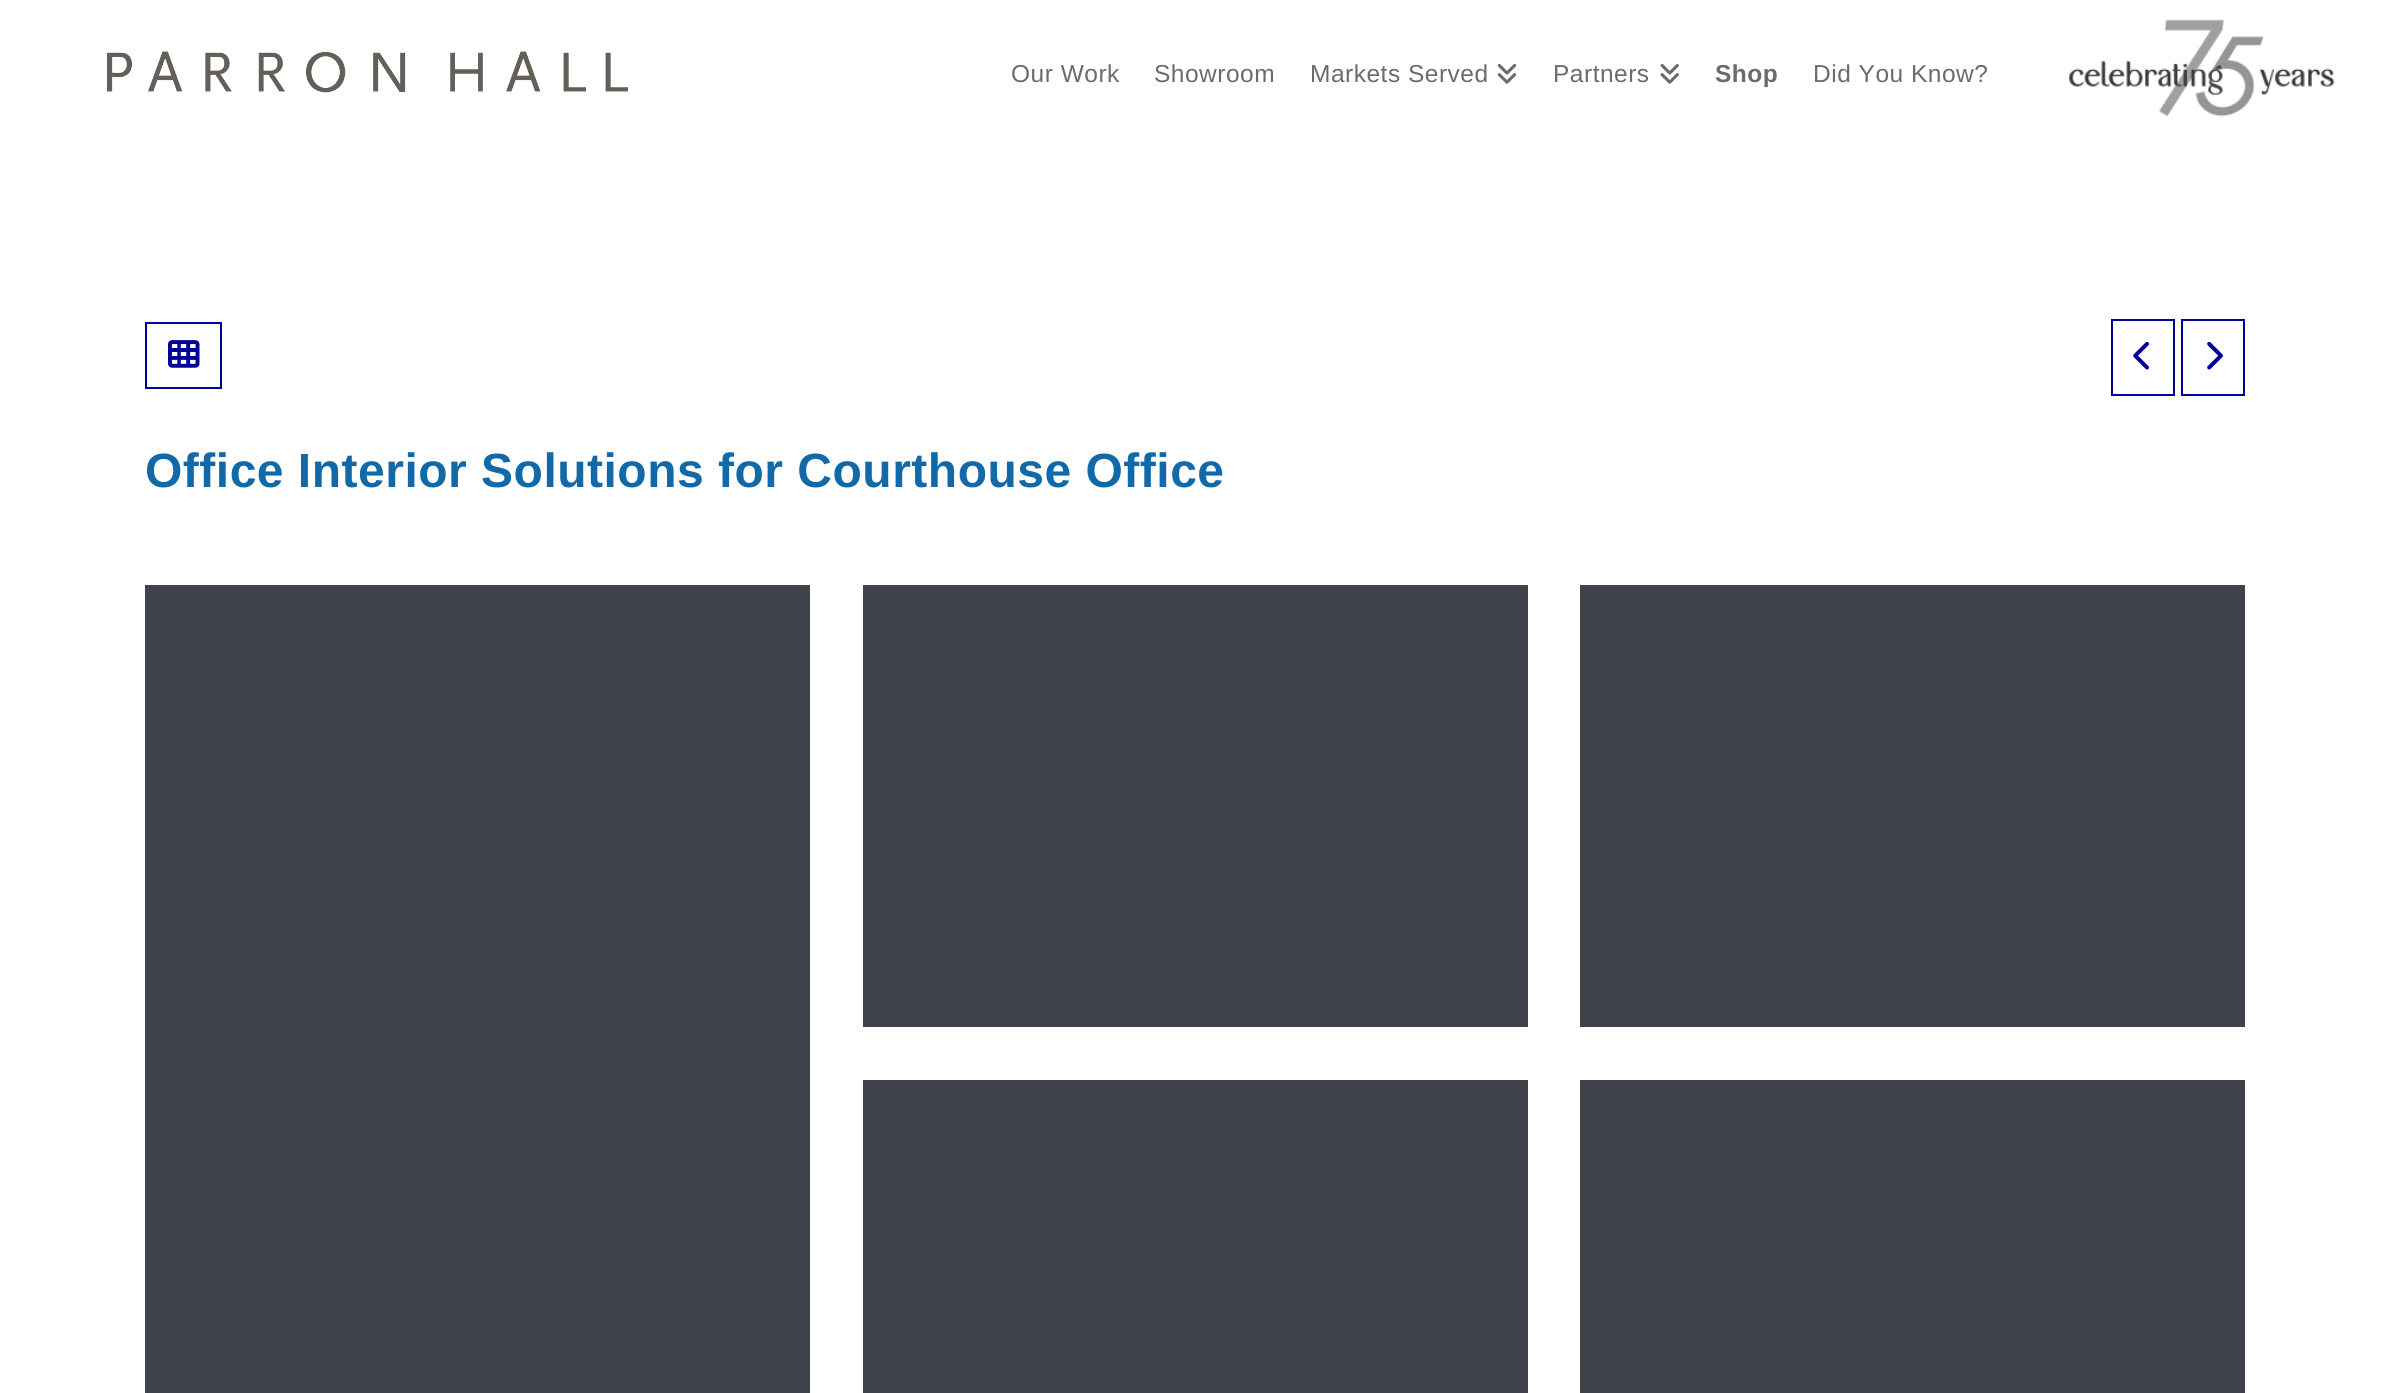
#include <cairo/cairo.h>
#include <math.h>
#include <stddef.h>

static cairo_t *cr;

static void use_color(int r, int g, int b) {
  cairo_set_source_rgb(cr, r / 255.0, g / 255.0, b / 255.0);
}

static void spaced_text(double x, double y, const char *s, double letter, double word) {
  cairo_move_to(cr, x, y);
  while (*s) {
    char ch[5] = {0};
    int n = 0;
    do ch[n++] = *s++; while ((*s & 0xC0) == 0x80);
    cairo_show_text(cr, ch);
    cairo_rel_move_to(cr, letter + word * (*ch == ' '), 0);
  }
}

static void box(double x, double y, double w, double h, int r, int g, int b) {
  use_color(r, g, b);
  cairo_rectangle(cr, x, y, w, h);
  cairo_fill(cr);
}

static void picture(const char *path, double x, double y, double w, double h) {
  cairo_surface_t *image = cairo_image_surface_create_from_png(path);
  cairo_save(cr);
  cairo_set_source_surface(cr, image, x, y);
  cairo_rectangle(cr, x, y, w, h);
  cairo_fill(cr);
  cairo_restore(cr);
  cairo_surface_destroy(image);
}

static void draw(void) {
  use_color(255, 255, 255);
  cairo_paint(cr);
  picture("img_01.png", 107, 51, 521, 42);
  picture("img_02.png", 1497, 63, 20, 21);
  picture("img_03.png", 1660, 63, 19, 21);
  picture("img_04.png", 2069, 19, 266, 98);
  cairo_rectangle(cr, 146, 323, 75, 65);
  use_color(0, 0, 153);
  cairo_stroke(cr);
  picture("img_05.png", 168, 340, 32, 28);
  cairo_rectangle(cr, 2112, 320, 62, 75);
  cairo_stroke(cr);
  picture("img_06.png", 2133, 341, 16, 29);
  cairo_rectangle(cr, 2182, 320, 62, 75);
  cairo_stroke(cr);
  picture("img_07.png", 2207, 341, 16, 29);
  box(145, 585, 665, 808, 63, 66, 74);
  box(863, 585, 665, 442, 63, 66, 74);
  box(1580, 585, 665, 442, 63, 66, 74);
  box(863, 1080, 665, 313, 63, 66, 74);
  box(1580, 1080, 665, 313, 63, 66, 74);
  cairo_select_font_face(cr, "Liberation Sans", CAIRO_FONT_SLANT_NORMAL, CAIRO_FONT_WEIGHT_NORMAL);
  cairo_set_font_size(cr, 24.5);
  use_color(107, 107, 107);
  spaced_text(1011, 82, "Our Work", 0.5, 0);
  spaced_text(1154, 82, "Showroom", 0.5, 0);
  spaced_text(1310, 82, "Markets Served", 0.5, 0);
  spaced_text(1553, 82, "Partners", 0.5, 0);
  cairo_select_font_face(cr, "Liberation Sans", CAIRO_FONT_SLANT_NORMAL, CAIRO_FONT_WEIGHT_BOLD);
  spaced_text(1715, 82, "Shop", 0.5, 0);
  cairo_select_font_face(cr, "Liberation Sans", CAIRO_FONT_SLANT_NORMAL, CAIRO_FONT_WEIGHT_NORMAL);
  spaced_text(1813, 82, "Did You Know?", 0.5, 0);
  cairo_select_font_face(cr, "Liberation Sans", CAIRO_FONT_SLANT_NORMAL, CAIRO_FONT_WEIGHT_BOLD);
  cairo_set_font_size(cr, 48);
  use_color(17, 105, 168);
  spaced_text(145, 487, "Office Interior Solutions for Courthouse Office", 0.5, 0);
}

int main(void) {
  cairo_surface_t *surface = cairo_image_surface_create(CAIRO_FORMAT_RGB24, 2390, 1393);
  cr = cairo_create(surface);
  cairo_font_options_t *options = cairo_font_options_create();
  cairo_font_options_set_hint_metrics(options, CAIRO_HINT_METRICS_OFF);
  cairo_font_options_set_hint_style(options, CAIRO_HINT_STYLE_NONE);
  cairo_set_font_options(cr, options);
  cairo_set_miter_limit(cr, 4);
  draw();
  cairo_surface_write_to_png(surface, "out.png");
  cairo_font_options_destroy(options);
  cairo_destroy(cr);
  cairo_surface_destroy(surface);
  return 0;
}
